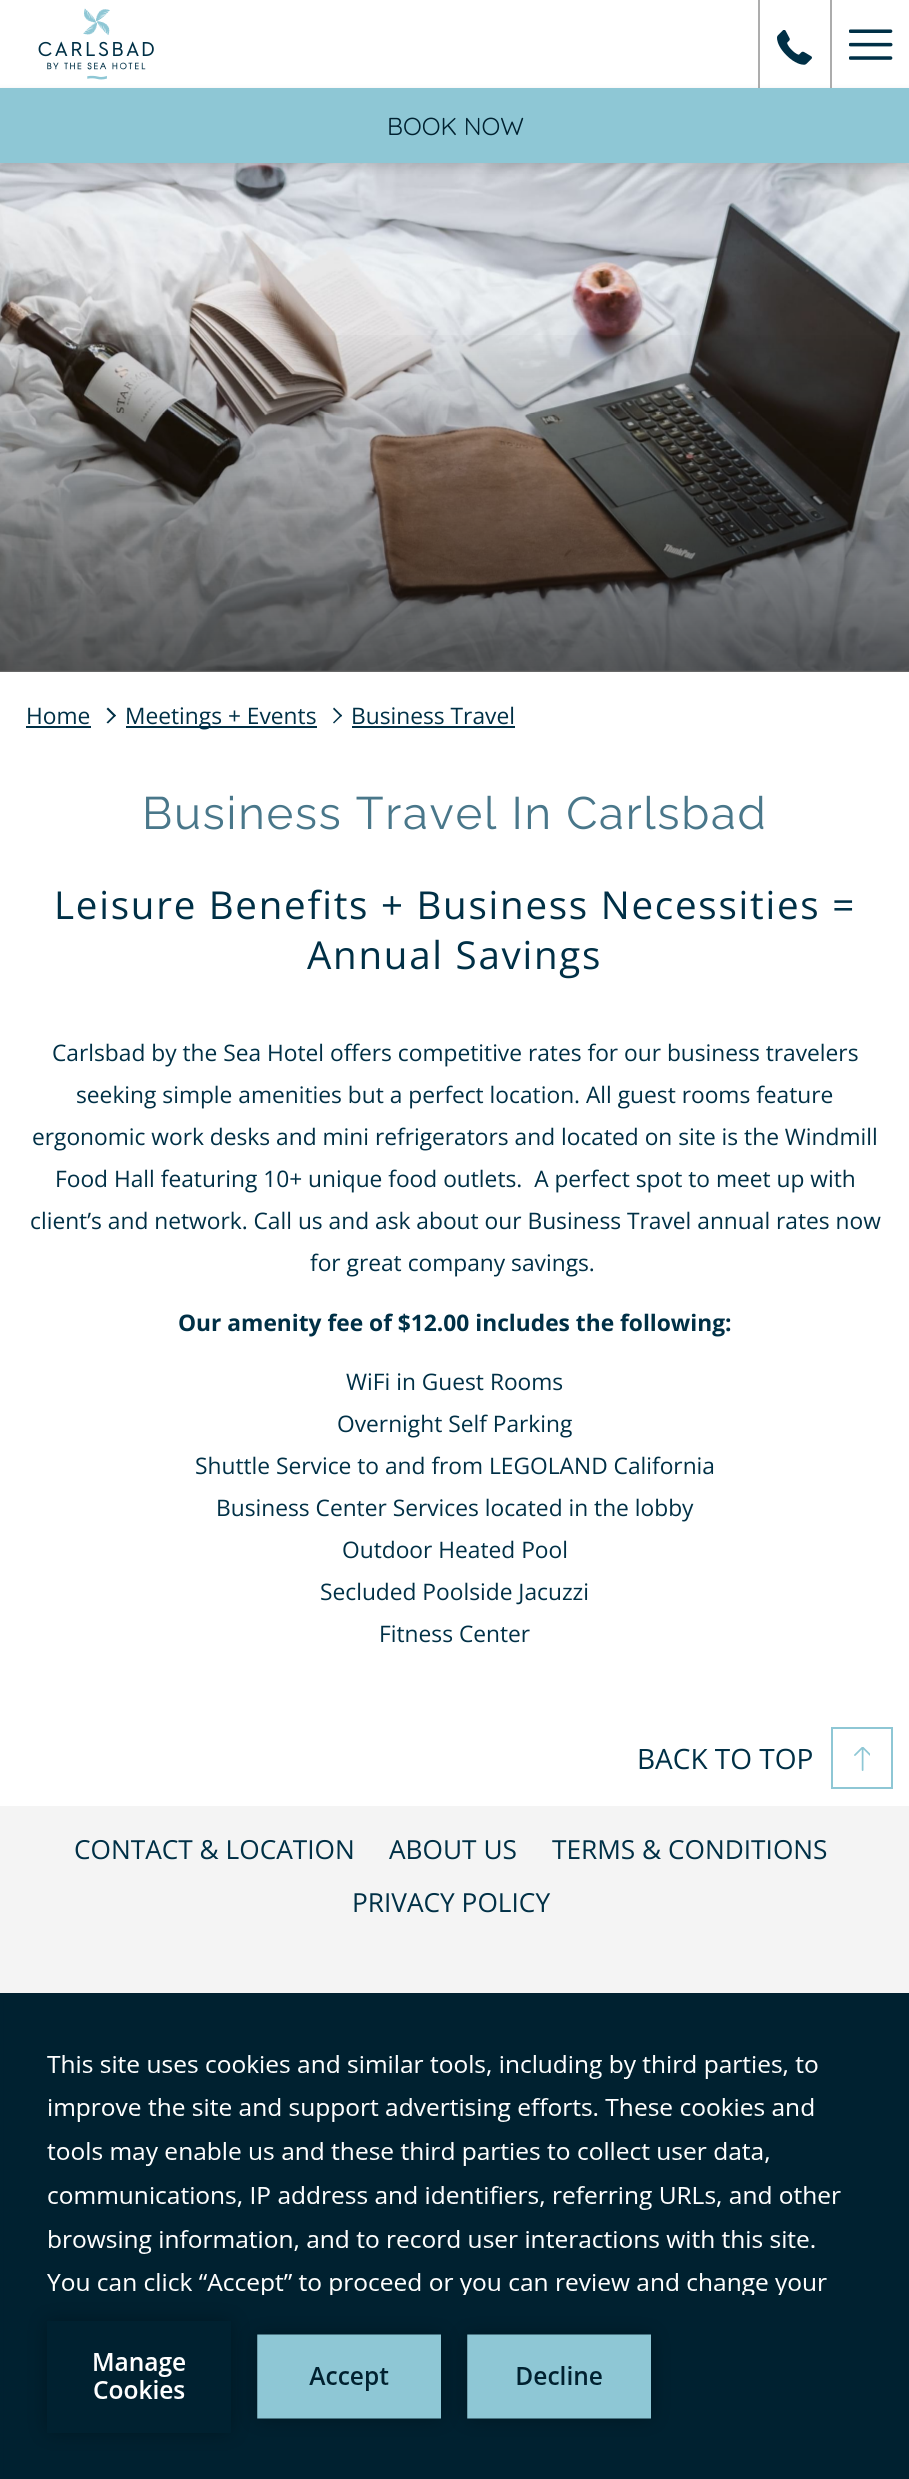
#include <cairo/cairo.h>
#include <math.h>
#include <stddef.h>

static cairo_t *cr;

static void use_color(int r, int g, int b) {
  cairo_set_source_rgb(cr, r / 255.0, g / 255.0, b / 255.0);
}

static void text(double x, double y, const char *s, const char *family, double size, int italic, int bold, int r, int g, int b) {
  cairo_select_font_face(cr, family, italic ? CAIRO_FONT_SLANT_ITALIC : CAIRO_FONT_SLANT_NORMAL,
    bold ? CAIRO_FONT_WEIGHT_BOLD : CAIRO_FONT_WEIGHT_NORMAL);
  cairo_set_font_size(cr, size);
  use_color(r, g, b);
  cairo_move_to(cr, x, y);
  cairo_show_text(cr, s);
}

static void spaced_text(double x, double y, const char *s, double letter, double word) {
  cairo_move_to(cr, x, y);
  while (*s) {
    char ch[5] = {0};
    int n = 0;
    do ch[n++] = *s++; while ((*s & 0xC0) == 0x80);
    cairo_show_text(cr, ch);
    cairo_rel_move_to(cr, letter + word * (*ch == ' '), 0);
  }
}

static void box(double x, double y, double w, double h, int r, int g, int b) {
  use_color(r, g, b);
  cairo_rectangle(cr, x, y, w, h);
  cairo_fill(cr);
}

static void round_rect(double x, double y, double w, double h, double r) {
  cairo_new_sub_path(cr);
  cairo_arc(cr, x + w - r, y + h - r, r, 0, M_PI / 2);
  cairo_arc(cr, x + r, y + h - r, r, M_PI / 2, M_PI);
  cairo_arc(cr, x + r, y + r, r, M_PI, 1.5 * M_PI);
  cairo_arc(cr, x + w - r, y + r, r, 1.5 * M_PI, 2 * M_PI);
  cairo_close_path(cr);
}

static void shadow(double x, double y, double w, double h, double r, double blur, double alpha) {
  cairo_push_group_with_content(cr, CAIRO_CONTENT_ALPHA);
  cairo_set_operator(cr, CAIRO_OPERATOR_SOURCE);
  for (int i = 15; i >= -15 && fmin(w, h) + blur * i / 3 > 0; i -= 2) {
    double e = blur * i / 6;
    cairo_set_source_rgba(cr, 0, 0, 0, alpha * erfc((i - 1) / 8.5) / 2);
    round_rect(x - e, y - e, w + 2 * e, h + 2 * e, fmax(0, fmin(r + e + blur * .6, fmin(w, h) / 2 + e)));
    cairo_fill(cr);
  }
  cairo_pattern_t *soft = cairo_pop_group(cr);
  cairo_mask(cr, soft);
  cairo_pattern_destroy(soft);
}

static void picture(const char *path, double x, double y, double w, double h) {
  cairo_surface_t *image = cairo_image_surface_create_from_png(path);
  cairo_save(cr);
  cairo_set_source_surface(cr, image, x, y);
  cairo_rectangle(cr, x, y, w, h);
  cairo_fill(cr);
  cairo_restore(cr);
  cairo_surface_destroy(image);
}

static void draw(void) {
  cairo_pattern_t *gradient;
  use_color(255, 255, 255);
  cairo_paint(cr);
  cairo_save(cr);
  cairo_set_fill_rule(cr, CAIRO_FILL_RULE_EVEN_ODD);
  cairo_new_path(cr);
  cairo_move_to(cr, 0, 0);
  cairo_line_to(cr, 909, 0);
  cairo_line_to(cr, 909, 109);
  cairo_line_to(cr, 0, 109);
  cairo_close_path(cr);
  cairo_move_to(cr, 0, 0);
  cairo_line_to(cr, 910, 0);
  cairo_line_to(cr, 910, 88);
  cairo_line_to(cr, 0, 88);
  cairo_close_path(cr);
  cairo_clip(cr);
  use_color(0, 0, 0);
  shadow(0, 5, 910, 88, 0, 5, 0.15);
  cairo_restore(cr);
  cairo_set_source_rgba(cr, 1, 1, 1, 0.9);
  cairo_rectangle(cr, 0, 87, 909, 1);
  cairo_fill(cr);
  picture("img_01.png", 38, 8, 116, 72);
  box(758, 0, 2, 88, 173, 173, 173);
  picture("img_02.png", 777, 30, 35, 35);
  picture("img_04.png", 0, 163, 909, 508);
  use_color(0, 0, 0);
  shadow(0, 93, 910, 75, 0, 5, 0.15);
  cairo_set_source_rgba(cr, 0.655, 0.655, 0.655, 0.93);
  cairo_rectangle(cr, 830, 0, 2, 88);
  cairo_fill(cr);
  picture("img_03.png", 849, 29, 44, 31);
  box(0, 88, 909, 75, 142, 199, 213);
  gradient = cairo_pattern_create_linear(455, 322, 455, 672);
  cairo_pattern_add_color_stop_rgba(gradient, 0, 0, 0, 0, 0);
  cairo_pattern_add_color_stop_rgba(gradient, 1, 0, 0, 0, 0.6);
  cairo_set_source(cr, gradient);
  cairo_pattern_destroy(gradient);
  cairo_rectangle(cr, 0, 335, 909, 337);
  cairo_fill(cr);
  box(26, 726, 65, 2, 0, 48, 70);
  cairo_new_path(cr);
  cairo_move_to(cr, 106.5, 709);
  cairo_line_to(cr, 108, 707.5);
  cairo_line_to(cr, 116, 715.5);
  cairo_line_to(cr, 114.5, 717);
  cairo_close_path(cr);
  cairo_fill(cr);
  cairo_new_path(cr);
  cairo_move_to(cr, 106.5, 722.5);
  cairo_line_to(cr, 114.5, 714.5);
  cairo_line_to(cr, 116, 715.5);
  cairo_line_to(cr, 108, 723.5);
  cairo_close_path(cr);
  cairo_fill(cr);
  box(126, 726, 191, 2, 0, 48, 70);
  cairo_new_path(cr);
  cairo_move_to(cr, 333, 709);
  cairo_line_to(cr, 334, 707.5);
  cairo_line_to(cr, 342, 715.5);
  cairo_line_to(cr, 341, 717);
  cairo_close_path(cr);
  cairo_fill(cr);
  cairo_new_path(cr);
  cairo_move_to(cr, 333, 722.5);
  cairo_line_to(cr, 341, 714.5);
  cairo_line_to(cr, 342, 715.5);
  cairo_line_to(cr, 334, 723.5);
  cairo_close_path(cr);
  cairo_fill(cr);
  box(352, 726, 163, 2, 0, 48, 70);
  cairo_rectangle(cr, 832, 1728, 60, 60);
  use_color(142, 199, 213);
  cairo_stroke(cr);
  picture("img_05.png", 854, 1747, 16, 24);
  box(0, 1806, 909, 187, 244, 244, 244);
  picture("img_06.png", 0, 1993, 909, 486);
  text(387, 135, "BOOK NOW", "Quicksand", 24.5, 0, 0, 0, 33, 48);
  text(26, 724, "Home", "Open Sans", 22.75, 0, 0, 0, 48, 70);
  text(125, 724, "Meetings + Events", "Open Sans", 22.75, 0, 0, 0, 48, 70);
  text(351, 724, "Business Travel", "Open Sans", 22.75, 0, 0, 0, 48, 70);
  cairo_select_font_face(cr, "Raleway", CAIRO_FONT_SLANT_NORMAL, CAIRO_FONT_WEIGHT_NORMAL);
  cairo_set_font_size(cr, 45.5);
  use_color(73, 119, 138);
  spaced_text(142, 829, "Business Travel In Carlsbad", 1.75, 0);
  cairo_select_font_face(cr, "Open Sans", CAIRO_FONT_SLANT_NORMAL, CAIRO_FONT_WEIGHT_NORMAL);
  cairo_set_font_size(cr, 38.5);
  use_color(0, 48, 70);
  spaced_text(54, 919, "Leisure Benefits + Business Necessities =", 1.75, 0);
  spaced_text(307, 969, "Annual Savings", 1.75, 0);
  text(52, 1061, "Carlsbad by the Sea Hotel offers competitive rates for our business travelers", "Open Sans", 22.75, 0, 0, 0, 48, 70);
  text(76, 1103, "seeking simple amenities but a perfect location. All guest rooms feature", "Open Sans", 22.75, 0, 0, 0, 48, 70);
  text(32, 1145, "ergonomic work desks and mini refrigerators and located on site is the Windmill", "Open Sans", 22.75, 0, 0, 0, 48, 70);
  text(55, 1187, "Food Hall featuring 10+ unique food outlets.  A perfect spot to meet up with", "Open Sans", 22.75, 0, 0, 0, 48, 70);
  text(30, 1229, "client’s and network. Call us and ask about our Business Travel annual rates now", "Open Sans", 22.75, 0, 0, 0, 48, 70);
  text(310, 1271, "for great company savings.", "Open Sans", 22.75, 0, 0, 0, 48, 70);
  text(178, 1331, "Our amenity fee of $12.00 includes the following:", "Open Sans", 22.75, 0, 1, 0, 48, 70);
  text(346, 1390, "WiFi in Guest Rooms", "Open Sans", 22.75, 0, 0, 0, 48, 70);
  text(337, 1432, "Overnight Self Parking", "Open Sans", 22.75, 0, 0, 0, 48, 70);
  text(195, 1474, "Shuttle Service to and from LEGOLAND California", "Open Sans", 22.75, 0, 0, 0, 48, 70);
  text(216, 1516, "Business Center Services located in the lobby", "Open Sans", 22.75, 0, 0, 0, 48, 70);
  text(342, 1558, "Outdoor Heated Pool", "Open Sans", 22.75, 0, 0, 0, 48, 70);
  text(320, 1600, "Secluded Poolside Jacuzzi", "Open Sans", 22.75, 0, 0, 0, 48, 70);
  text(379, 1642, "Fitness Center", "Open Sans", 22.75, 0, 0, 0, 48, 70);
  text(637, 1769, "BACK TO TOP", "Open Sans", 28, 0, 0, 0, 48, 70);
  text(74, 1859, "CONTACT & LOCATION", "Open Sans", 26.25, 0, 0, 0, 48, 70);
  text(389, 1859, "ABOUT US", "Open Sans", 26.25, 0, 0, 0, 48, 70);
  text(552, 1859, "TERMS & CONDITIONS", "Open Sans", 26.25, 0, 0, 0, 48, 70);
  text(352, 1912, "PRIVACY POLICY", "Open Sans", 26.25, 0, 0, 0, 48, 70);
}

int main(void) {
  cairo_surface_t *surface = cairo_image_surface_create(CAIRO_FORMAT_RGB24, 909, 2479);
  cr = cairo_create(surface);
  cairo_font_options_t *options = cairo_font_options_create();
  cairo_font_options_set_hint_metrics(options, CAIRO_HINT_METRICS_OFF);
  cairo_font_options_set_hint_style(options, CAIRO_HINT_STYLE_NONE);
  cairo_set_font_options(cr, options);
  cairo_set_miter_limit(cr, 4);
  draw();
  cairo_surface_write_to_png(surface, "out.png");
  cairo_font_options_destroy(options);
  cairo_destroy(cr);
  cairo_surface_destroy(surface);
  return 0;
}
